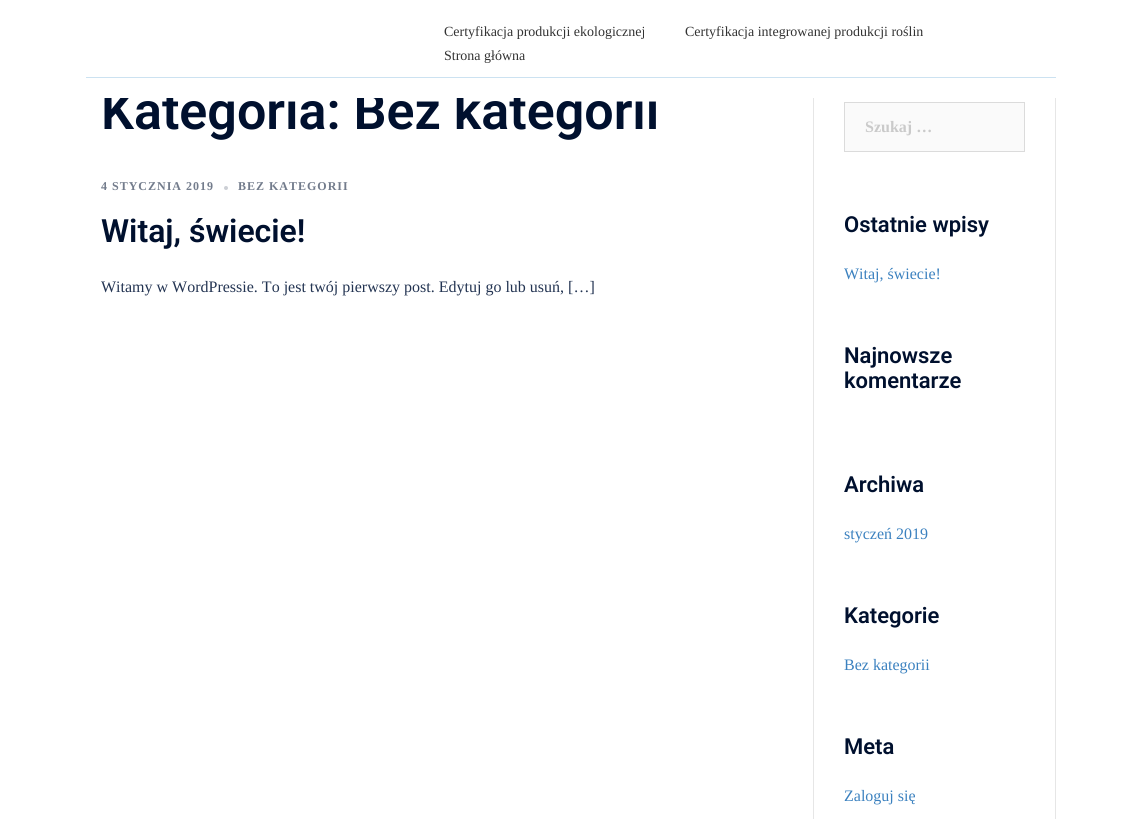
#include <cairo/cairo.h>
#include <math.h>
#include <stddef.h>

static cairo_t *cr;

static void use_color(int r, int g, int b) {
  cairo_set_source_rgb(cr, r / 255.0, g / 255.0, b / 255.0);
}

static void text(double x, double y, const char *s, const char *family, double size, int italic, int bold, int r, int g, int b) {
  cairo_select_font_face(cr, family, italic ? CAIRO_FONT_SLANT_ITALIC : CAIRO_FONT_SLANT_NORMAL,
    bold ? CAIRO_FONT_WEIGHT_BOLD : CAIRO_FONT_WEIGHT_NORMAL);
  cairo_set_font_size(cr, size);
  use_color(r, g, b);
  cairo_move_to(cr, x, y);
  cairo_show_text(cr, s);
}

static void spaced_text(double x, double y, const char *s, double letter, double word) {
  cairo_move_to(cr, x, y);
  while (*s) {
    char ch[5] = {0};
    int n = 0;
    do ch[n++] = *s++; while ((*s & 0xC0) == 0x80);
    cairo_show_text(cr, ch);
    cairo_rel_move_to(cr, letter + word * (*ch == ' '), 0);
  }
}

static void box(double x, double y, double w, double h, int r, int g, int b) {
  use_color(r, g, b);
  cairo_rectangle(cr, x, y, w, h);
  cairo_fill(cr);
}

static void draw(void) {
  use_color(255, 255, 255);
  cairo_paint(cr);
  use_color(204, 207, 213);
  cairo_arc(cr, 226, 188, 2, 0, 2 * M_PI);
  cairo_fill(cr);
  cairo_rectangle(cr, 813.5, 71.5, 242, 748);
  use_color(230, 230, 230);
  cairo_set_line_width(cr, 1);
  cairo_stroke(cr);
  use_color(250, 250, 250);
  cairo_rectangle(cr, 844.5, 102.5, 180, 49);
  cairo_fill_preserve(cr);
  use_color(219, 219, 219);
  cairo_stroke(cr);
  text(444, 36, "Certyfikacja produkcji ekologicznej", "Liberation Serif", 14, 0, 0, 51, 51, 51);
  text(685, 36, "Certyfikacja integrowanej produkcji roślin", "Liberation Serif", 14, 0, 0, 51, 51, 51);
  text(444, 60, "Strona główna", "Liberation Serif", 14, 0, 0, 51, 51, 51);
  text(101, 129, "Kategoria: Bez kategorii", "Roboto SemiBold", 52, 0, 0, 0, 16, 46);
  box(104, 71, 952, 27, 255, 255, 255);
  box(86, 77, 970, 1, 204, 226, 241);
  cairo_select_font_face(cr, "Liberation Serif", CAIRO_FONT_SLANT_NORMAL, CAIRO_FONT_WEIGHT_BOLD);
  cairo_set_font_size(cr, 12);
  use_color(115, 124, 140);
  spaced_text(101, 190, "4 STYCZNIA 2019", 1, 0);
  spaced_text(238, 190, "BEZ KATEGORII", 1, 0);
  text(101, 242, "Witaj, świecie!", "Roboto SemiBold", 32, 0, 0, 0, 16, 46);
  text(101, 292, "Witamy w WordPressie. To jest twój pierwszy post. Edytuj go lub usuń, […]", "Liberation Serif", 16, 0, 0, 35, 52, 82);
  text(865, 132, "Szukaj …", "Liberation Serif", 16, 0, 1, 202, 202, 202);
  text(844, 232, "Ostatnie wpisy", "Roboto SemiBold", 22, 0, 0, 0, 16, 46);
  text(844, 279, "Witaj, świecie!", "Liberation Serif", 16, 0, 0, 59, 129, 191);
  text(844, 363, "Najnowsze", "Roboto SemiBold", 22, 0, 0, 0, 16, 46);
  text(844, 388, "komentarze", "Roboto SemiBold", 22, 0, 0, 0, 16, 46);
  text(844, 492, "Archiwa", "Roboto SemiBold", 22, 0, 0, 0, 16, 46);
  text(844, 539, "styczeń 2019", "Liberation Serif", 16, 0, 0, 59, 129, 191);
  text(844, 623, "Kategorie", "Roboto SemiBold", 22, 0, 0, 0, 16, 46);
  text(844, 670, "Bez kategorii", "Liberation Serif", 16, 0, 0, 59, 129, 191);
  text(844, 754, "Meta", "Roboto SemiBold", 22, 0, 0, 0, 16, 46);
  text(844, 801, "Zaloguj się", "Liberation Serif", 16, 0, 0, 59, 129, 191);
}

int main(void) {
  cairo_surface_t *surface = cairo_image_surface_create(CAIRO_FORMAT_RGB24, 1141, 819);
  cr = cairo_create(surface);
  cairo_font_options_t *options = cairo_font_options_create();
  cairo_font_options_set_hint_metrics(options, CAIRO_HINT_METRICS_OFF);
  cairo_font_options_set_hint_style(options, CAIRO_HINT_STYLE_NONE);
  cairo_set_font_options(cr, options);
  cairo_set_miter_limit(cr, 4);
  draw();
  cairo_surface_write_to_png(surface, "out.png");
  cairo_font_options_destroy(options);
  cairo_destroy(cr);
  cairo_surface_destroy(surface);
  return 0;
}
